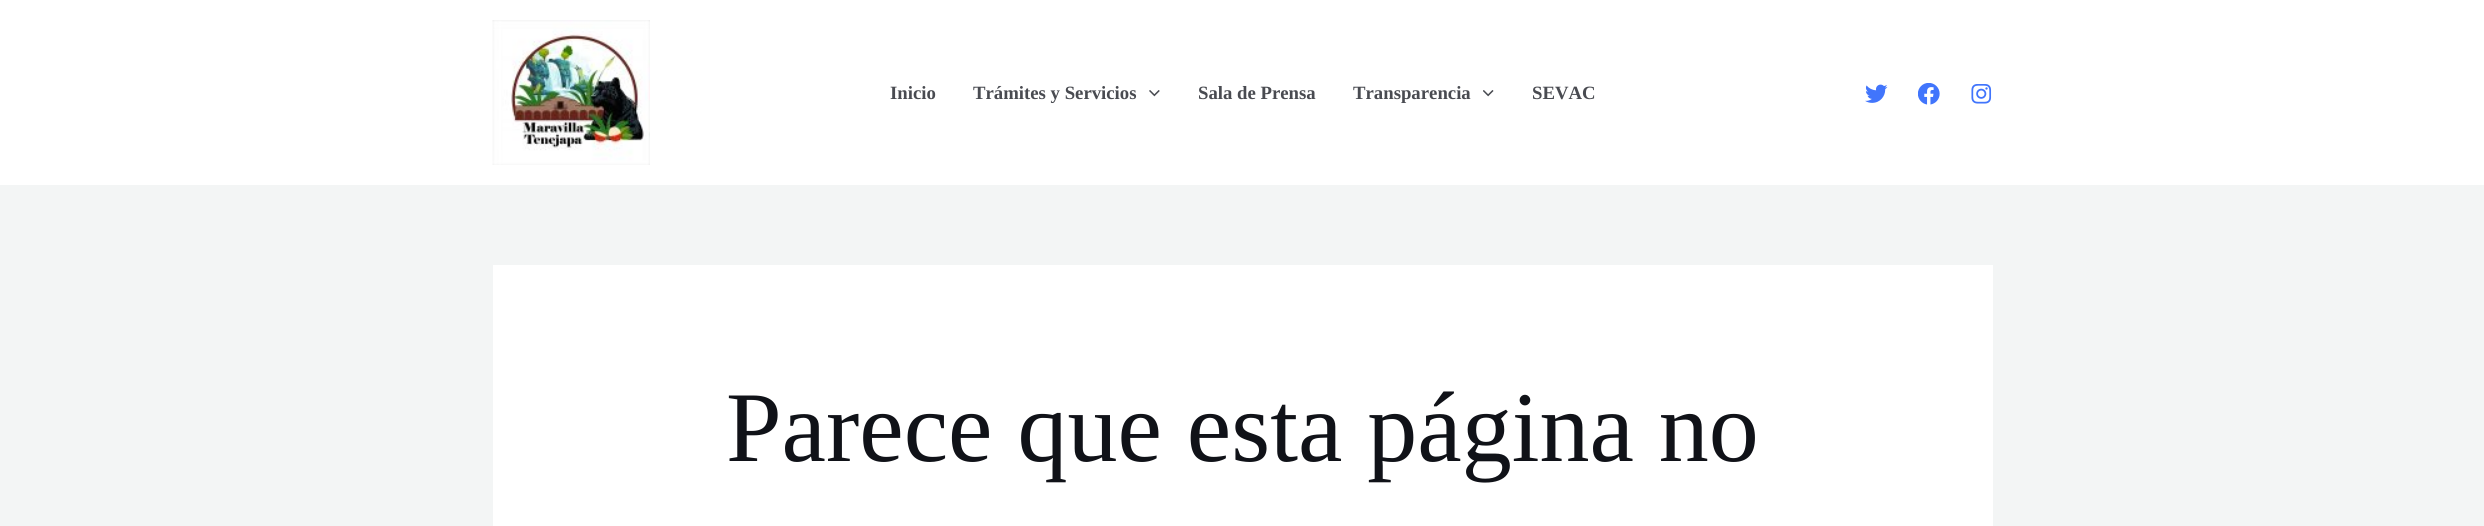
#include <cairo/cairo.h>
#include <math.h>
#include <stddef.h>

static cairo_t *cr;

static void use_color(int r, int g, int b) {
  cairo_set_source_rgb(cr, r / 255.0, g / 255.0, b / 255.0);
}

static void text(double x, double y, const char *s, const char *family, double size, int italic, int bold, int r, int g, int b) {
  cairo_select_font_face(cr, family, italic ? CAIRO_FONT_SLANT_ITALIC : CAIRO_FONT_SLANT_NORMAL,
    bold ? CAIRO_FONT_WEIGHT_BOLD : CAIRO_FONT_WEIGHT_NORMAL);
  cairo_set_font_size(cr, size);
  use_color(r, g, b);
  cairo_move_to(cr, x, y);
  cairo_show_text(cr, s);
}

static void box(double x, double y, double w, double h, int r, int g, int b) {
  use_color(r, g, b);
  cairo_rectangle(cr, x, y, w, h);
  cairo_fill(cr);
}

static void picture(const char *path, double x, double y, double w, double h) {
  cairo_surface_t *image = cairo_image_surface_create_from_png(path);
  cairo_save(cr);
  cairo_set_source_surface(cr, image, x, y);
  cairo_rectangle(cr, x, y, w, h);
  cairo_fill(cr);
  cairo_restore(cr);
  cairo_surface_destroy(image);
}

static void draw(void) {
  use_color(243, 245, 245);
  cairo_paint(cr);
  box(0, 0, 2484, 185, 255, 255, 255);
  picture("img_01.png", 492, 20, 158, 145);
  picture("img_02.png", 1149, 90, 11, 7);
  picture("img_03.png", 1483, 90, 11, 7);
  picture("img_04.png", 1865, 84, 23, 19);
  picture("img_05.png", 1918, 83, 22, 22);
  picture("img_06.png", 1971, 84, 21, 20);
  box(493, 265, 1500, 261, 255, 255, 255);
  text(890, 99, "Inicio", "Liberation Serif", 18.75, 0, 1, 73, 75, 81);
  text(973, 99, "Trámites y Servicios", "Liberation Serif", 18.75, 0, 1, 73, 75, 81);
  text(1198, 99, "Sala de Prensa", "Liberation Serif", 18.75, 0, 1, 73, 75, 81);
  text(1353, 99, "Transparencia", "Liberation Serif", 18.75, 0, 1, 73, 75, 81);
  text(1532, 99, "SEVAC", "Liberation Serif", 18.75, 0, 1, 73, 75, 81);
  text(726, 461, "Parece que esta página no", "Liberation Serif", 100, 0, 0, 16, 18, 24);
}

int main(void) {
  cairo_surface_t *surface = cairo_image_surface_create(CAIRO_FORMAT_RGB24, 2484, 526);
  cr = cairo_create(surface);
  cairo_font_options_t *options = cairo_font_options_create();
  cairo_font_options_set_hint_metrics(options, CAIRO_HINT_METRICS_OFF);
  cairo_font_options_set_hint_style(options, CAIRO_HINT_STYLE_NONE);
  cairo_set_font_options(cr, options);
  cairo_set_miter_limit(cr, 4);
  draw();
  cairo_surface_write_to_png(surface, "out.png");
  cairo_font_options_destroy(options);
  cairo_destroy(cr);
  cairo_surface_destroy(surface);
  return 0;
}
